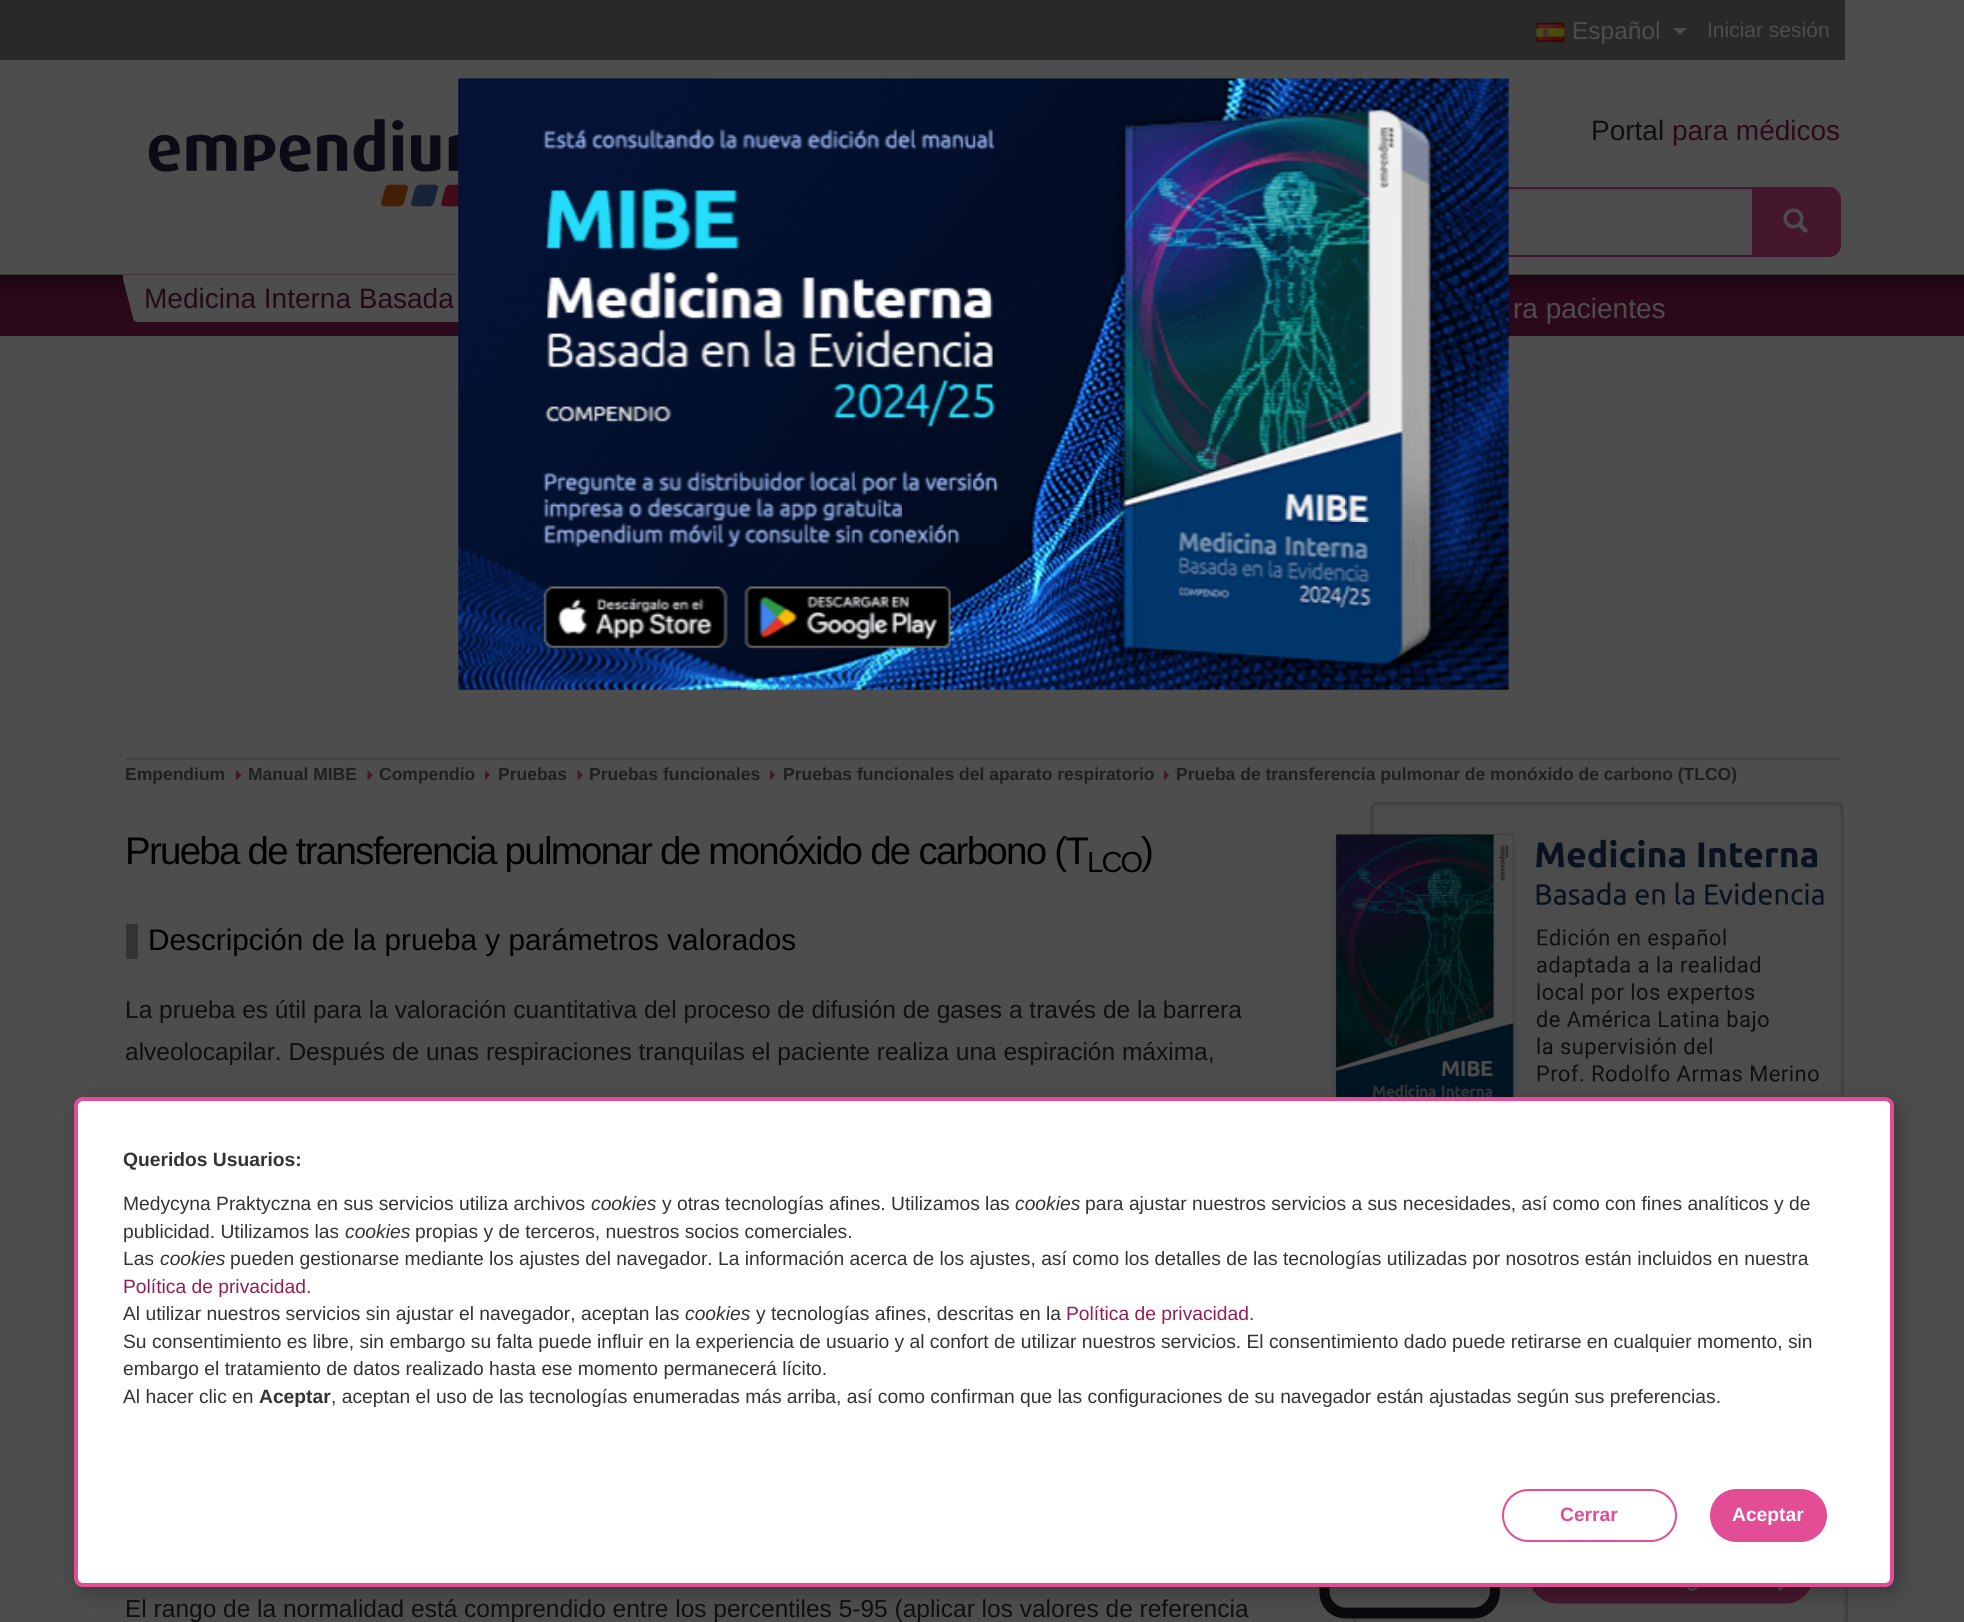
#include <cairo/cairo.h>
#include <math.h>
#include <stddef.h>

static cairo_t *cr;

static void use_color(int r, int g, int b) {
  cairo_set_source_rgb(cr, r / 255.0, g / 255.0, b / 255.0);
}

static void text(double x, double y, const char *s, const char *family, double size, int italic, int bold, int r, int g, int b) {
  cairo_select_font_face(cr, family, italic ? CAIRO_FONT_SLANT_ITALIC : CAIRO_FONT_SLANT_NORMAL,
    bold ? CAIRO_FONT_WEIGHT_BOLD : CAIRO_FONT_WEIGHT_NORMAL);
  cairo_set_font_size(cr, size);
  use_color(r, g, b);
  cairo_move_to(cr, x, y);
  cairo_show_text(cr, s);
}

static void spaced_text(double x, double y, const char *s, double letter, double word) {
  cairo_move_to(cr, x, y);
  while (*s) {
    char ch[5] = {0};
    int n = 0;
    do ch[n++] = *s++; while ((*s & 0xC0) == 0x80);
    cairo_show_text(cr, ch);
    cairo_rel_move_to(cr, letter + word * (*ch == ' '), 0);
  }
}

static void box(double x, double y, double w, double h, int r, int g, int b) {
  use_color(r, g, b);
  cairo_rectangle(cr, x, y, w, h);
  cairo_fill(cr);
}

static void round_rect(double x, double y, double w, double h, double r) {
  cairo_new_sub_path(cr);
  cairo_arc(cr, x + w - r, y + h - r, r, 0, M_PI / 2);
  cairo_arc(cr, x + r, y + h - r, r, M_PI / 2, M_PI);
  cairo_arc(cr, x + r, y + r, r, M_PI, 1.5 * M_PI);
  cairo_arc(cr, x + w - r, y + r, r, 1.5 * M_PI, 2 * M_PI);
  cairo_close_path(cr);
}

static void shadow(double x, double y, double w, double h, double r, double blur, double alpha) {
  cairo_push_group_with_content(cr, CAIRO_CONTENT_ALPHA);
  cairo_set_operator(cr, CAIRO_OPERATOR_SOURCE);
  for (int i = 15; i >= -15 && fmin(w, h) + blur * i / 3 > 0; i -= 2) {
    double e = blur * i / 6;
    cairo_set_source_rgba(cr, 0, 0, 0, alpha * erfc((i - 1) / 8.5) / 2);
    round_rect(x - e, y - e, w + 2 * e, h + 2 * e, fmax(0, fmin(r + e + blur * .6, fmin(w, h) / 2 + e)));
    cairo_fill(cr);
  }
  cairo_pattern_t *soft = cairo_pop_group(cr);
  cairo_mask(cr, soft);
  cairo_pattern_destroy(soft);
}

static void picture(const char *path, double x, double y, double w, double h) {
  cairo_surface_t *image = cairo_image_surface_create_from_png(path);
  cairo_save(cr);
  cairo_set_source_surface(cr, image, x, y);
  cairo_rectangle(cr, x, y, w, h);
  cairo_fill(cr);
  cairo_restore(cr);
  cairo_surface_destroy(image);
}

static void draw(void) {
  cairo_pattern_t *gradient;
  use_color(77, 77, 77);
  cairo_paint(cr);
  gradient = cairo_pattern_create_linear(0, 30, 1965, 30);
  cairo_pattern_add_color_stop_rgba(gradient, 0, 0.161, 0.161, 0.161, 1);
  cairo_pattern_add_color_stop_rgba(gradient, 0.49, 0.161, 0.161, 0.161, 1);
  cairo_pattern_add_color_stop_rgba(gradient, 0.51, 0.302, 0.302, 0.302, 1);
  cairo_pattern_add_color_stop_rgba(gradient, 1, 0.302, 0.302, 0.302, 1);
  cairo_set_source(cr, gradient);
  cairo_pattern_destroy(gradient);
  cairo_rectangle(cr, 0, 0, 999, 60);
  cairo_fill(cr);
  box(966, 0, 879, 60, 41, 41, 41);
  picture("img_01.png", 1536, 22, 29, 20);
  use_color(77, 77, 77);
  cairo_new_path(cr);
  cairo_move_to(cr, 1673, 28);
  cairo_line_to(cr, 1687, 28);
  cairo_line_to(cr, 1680, 35);
  cairo_close_path(cr);
  cairo_fill(cr);
  picture("img_02.png", 149, 119, 310, 88);
  use_color(71, 71, 71);
  cairo_new_path(cr);
  cairo_move_to(cr, 1022, 191);
  cairo_line_to(cr, 1752, 191);
  cairo_line_to(cr, 1752, 189);
  cairo_line_to(cr, 1023, 189);
  cairo_curve_to(cr, 1016, 189, 1012, 195, 1012, 201);
  cairo_curve_to(cr, 1012, 195, 1016, 191, 1022, 191);
  cairo_close_path(cr);
  cairo_fill(cr);
  cairo_rectangle(cr, 1011, 188, 742, 68);
  use_color(68, 23, 45);
  cairo_stroke(cr);
  cairo_new_path(cr);
  cairo_move_to(cr, 1755, 188);
  cairo_line_to(cr, 1829, 188);
  cairo_curve_to(cr, 1835, 188, 1840, 193, 1840, 199);
  cairo_line_to(cr, 1840, 245);
  cairo_curve_to(cr, 1840, 251, 1835, 256, 1829, 256);
  cairo_line_to(cr, 1755, 256);
  cairo_close_path(cr);
  cairo_fill_preserve(cr);
  cairo_stroke(cr);
  picture("img_03.png", 1783, 208, 25, 25);
  box(0, 299, 1964, 37, 44, 9, 26);
  picture("img_04.png", 0, 274, 1964, 25);
  use_color(77, 77, 77);
  cairo_new_path(cr);
  cairo_move_to(cr, 135, 275);
  cairo_line_to(cr, 662, 275);
  cairo_line_to(cr, 662, 317);
  cairo_curve_to(cr, 662, 320, 660, 322, 657, 322);
  cairo_line_to(cr, 140, 322);
  cairo_curve_to(cr, 137, 322, 135, 320, 135, 317);
  cairo_close_path(cr);
  cairo_fill(cr);
  cairo_save(cr);
  cairo_rectangle(cr, 123, 275, 17, 47);
  cairo_clip(cr);
  cairo_new_path(cr);
  cairo_move_to(cr, 122, 275);
  cairo_line_to(cr, 133, 318);
  cairo_curve_to(cr, 133, 321, 136, 322, 139, 322);
  cairo_line_to(cr, 140, 322);
  cairo_line_to(cr, 140, 275);
  cairo_close_path(cr);
  cairo_fill(cr);
  cairo_restore(cr);
  box(126, 758, 1715, 2, 66, 66, 66);
  use_color(68, 23, 45);
  cairo_new_path(cr);
  cairo_move_to(cr, 236, 780.5);
  cairo_line_to(cr, 236, 770);
  cairo_line_to(cr, 241.5, 775);
  cairo_close_path(cr);
  cairo_fill(cr);
  cairo_new_path(cr);
  cairo_move_to(cr, 367.5, 780.5);
  cairo_line_to(cr, 367.5, 770);
  cairo_line_to(cr, 373, 775);
  cairo_close_path(cr);
  cairo_fill(cr);
  cairo_new_path(cr);
  cairo_move_to(cr, 485, 780.5);
  cairo_line_to(cr, 485, 770);
  cairo_line_to(cr, 490, 775);
  cairo_close_path(cr);
  cairo_fill(cr);
  cairo_new_path(cr);
  cairo_move_to(cr, 577.5, 780.5);
  cairo_line_to(cr, 577.5, 770);
  cairo_line_to(cr, 583, 775);
  cairo_close_path(cr);
  cairo_fill(cr);
  cairo_new_path(cr);
  cairo_move_to(cr, 770, 780.5);
  cairo_line_to(cr, 770, 770);
  cairo_line_to(cr, 775, 775);
  cairo_close_path(cr);
  cairo_fill(cr);
  cairo_new_path(cr);
  cairo_move_to(cr, 1164, 780.5);
  cairo_line_to(cr, 1164, 770);
  cairo_line_to(cr, 1169, 775);
  cairo_close_path(cr);
  cairo_fill(cr);
  picture("img_05.png", 458, 78, 1050, 612);
  picture("img_06.png", 458, 78, 1051, 612);
  box(126, 924, 12, 35, 51, 51, 51);
  picture("img_07.png", 1331, 802, 513, 295);
  picture("img_08.png", 1318, 1587, 530, 35);
  use_color(0, 0, 0);
  shadow(79, 1103, 1820, 490, 9, 9, 0.25);
  use_color(255, 255, 255);
  round_rect(76, 1099, 1816, 486, 7);
  cairo_fill_preserve(cr);
  use_color(227, 77, 150);
  cairo_set_line_width(cr, 4);
  cairo_stroke(cr);
  round_rect(1503, 1490, 173, 51, 25.5);
  cairo_set_line_width(cr, 2);
  cairo_stroke(cr);
  round_rect(1711, 1490, 115, 51, 25.5);
  cairo_fill_preserve(cr);
  cairo_stroke(cr);
  text(1572, 39, "Español", "Liberation Sans", 24.5, 0, 0, 77, 77, 77);
  text(1707, 37, "Iniciar sesión", "Liberation Sans", 21, 0, 0, 77, 77, 77);
  text(1591, 140, "Portal", "Liberation Sans", 28, 0, 0, 15, 15, 15);
  text(1672, 140, "para médicos", "Liberation Sans", 28, 0, 0, 44, 9, 26);
  text(144, 308, "Medicina Interna Basada", "Liberation Sans", 28, 0, 0, 34, 11, 23);
  text(1513, 318, "ra pacientes", "Liberation Sans", 28, 0, 0, 77, 77, 77);
  text(125, 780, "Empendium", "Liberation Sans", 17.5, 0, 1, 31, 31, 31);
  text(248, 780, "Manual MIBE", "Liberation Sans", 17.5, 0, 1, 31, 31, 31);
  text(379, 780, "Compendio", "Liberation Sans", 17.5, 0, 1, 31, 31, 31);
  text(498, 780, "Pruebas", "Liberation Sans", 17.5, 0, 1, 31, 31, 31);
  text(589, 780, "Pruebas funcionales", "Liberation Sans", 17.5, 0, 1, 31, 31, 31);
  text(783, 780, "Pruebas funcionales del aparato respiratorio", "Liberation Sans", 17.5, 0, 1, 31, 31, 31);
  text(1176, 780, "Prueba de transferencia pulmonar de monóxido de carbono (TLCO)", "Liberation Sans", 17.5, 0, 1, 31, 31, 31);
  cairo_select_font_face(cr, "Liberation Sans", CAIRO_FONT_SLANT_NORMAL, CAIRO_FONT_WEIGHT_NORMAL);
  cairo_set_font_size(cr, 38.5);
  use_color(0, 0, 0);
  spaced_text(125, 864, "Prueba de transferencia pulmonar de monóxido de carbono (T", -1.75, 0);
  spaced_text(1141, 864, ")", -1.75, 0);
  cairo_set_font_size(cr, 29);
  spaced_text(1087, 872, "LCO", -1.75, 0);
  text(148, 950, "Descripción de la prueba y parámetros valorados", "Liberation Sans", 29.75, 0, 0, 0, 0, 0);
  text(125, 1018, "La prueba es útil para la valoración cuantitativa del proceso de difusión de gases a través de la barrera", "Liberation Sans", 24.5, 0, 0, 15, 15, 15);
  text(125, 1060, "alveolocapilar. Después de unas respiraciones tranquilas el paciente realiza una espiración máxima,", "Liberation Sans", 24.5, 0, 0, 15, 15, 15);
  text(125, 1617, "El rango de la normalidad está comprendido entre los percentiles 5-95 (aplicar los valores de referencia", "Liberation Sans", 24.5, 0, 0, 15, 15, 15);
  text(123, 1166, "Queridos Usuarios:", "Liberation Sans", 19.25, 0, 1, 51, 51, 51);
  text(123, 1210, "Medycyna Praktyczna en sus servicios utiliza archivos", "Liberation Sans", 19.25, 0, 0, 51, 51, 51);
  text(591, 1210, "cookies", "Liberation Sans", 19.25, 1, 0, 51, 51, 51);
  text(662, 1210, "y otras tecnologías afines. Utilizamos las", "Liberation Sans", 19.25, 0, 0, 51, 51, 51);
  text(1015, 1210, "cookies", "Liberation Sans", 19.25, 1, 0, 51, 51, 51);
  text(1085, 1210, "para ajustar nuestros servicios a sus necesidades, así como con fines analíticos y de", "Liberation Sans", 19.25, 0, 0, 51, 51, 51);
  text(123, 1238, "publicidad. Utilizamos las", "Liberation Sans", 19.25, 0, 0, 51, 51, 51);
  text(345, 1238, "cookies", "Liberation Sans", 19.25, 1, 0, 51, 51, 51);
  text(415, 1238, "propias y de terceros, nuestros socios comerciales.", "Liberation Sans", 19.25, 0, 0, 51, 51, 51);
  text(123, 1265, "Las", "Liberation Sans", 19.25, 0, 0, 51, 51, 51);
  text(160, 1265, "cookies", "Liberation Sans", 19.25, 1, 0, 51, 51, 51);
  text(230, 1265, "pueden gestionarse mediante los ajustes del navegador. La información acerca de los ajustes, así como los detalles de las tecnologías utilizadas por nosotros están incluidos en nuestra", "Liberation Sans", 19.25, 0, 0, 51, 51, 51);
  text(123, 1293, "Política de privacidad.", "Liberation Sans", 19.25, 0, 0, 147, 30, 87);
  text(123, 1320, "Al utilizar nuestros servicios sin ajustar el navegador, aceptan las", "Liberation Sans", 19.25, 0, 0, 51, 51, 51);
  text(685, 1320, "cookies", "Liberation Sans", 19.25, 1, 0, 51, 51, 51);
  text(756, 1320, "y tecnologías afines, descritas en la", "Liberation Sans", 19.25, 0, 0, 51, 51, 51);
  text(1066, 1320, "Política de privacidad.", "Liberation Sans", 19.25, 0, 0, 147, 30, 87);
  text(123, 1348, "Su consentimiento es libre, sin embargo su falta puede influir en la experiencia de usuario y al confort de utilizar nuestros servicios. El consentimiento dado puede retirarse en cualquier momento, sin", "Liberation Sans", 19.25, 0, 0, 51, 51, 51);
  text(123, 1375, "embargo el tratamiento de datos realizado hasta ese momento permanecerá lícito.", "Liberation Sans", 19.25, 0, 0, 51, 51, 51);
  text(123, 1403, "Al hacer clic en", "Liberation Sans", 19.25, 0, 0, 51, 51, 51);
  text(259, 1403, "Aceptar", "Liberation Sans", 19.25, 0, 1, 51, 51, 51);
  text(331, 1403, ", aceptan el uso de las tecnologías enumeradas más arriba, así como confirman que las configuraciones de su navegador están ajustadas según sus preferencias.", "Liberation Sans", 19.25, 0, 0, 51, 51, 51);
  text(1560, 1521, "Cerrar", "Liberation Sans", 19.25, 0, 1, 227, 77, 150);
  text(1732, 1521, "Aceptar", "Liberation Sans", 19.25, 0, 1, 255, 255, 255);
}

int main(void) {
  cairo_surface_t *surface = cairo_image_surface_create(CAIRO_FORMAT_RGB24, 1964, 1622);
  cr = cairo_create(surface);
  cairo_font_options_t *options = cairo_font_options_create();
  cairo_font_options_set_hint_metrics(options, CAIRO_HINT_METRICS_OFF);
  cairo_font_options_set_hint_style(options, CAIRO_HINT_STYLE_NONE);
  cairo_set_font_options(cr, options);
  cairo_set_miter_limit(cr, 4);
  draw();
  cairo_surface_write_to_png(surface, "out.png");
  cairo_font_options_destroy(options);
  cairo_destroy(cr);
  cairo_surface_destroy(surface);
  return 0;
}
